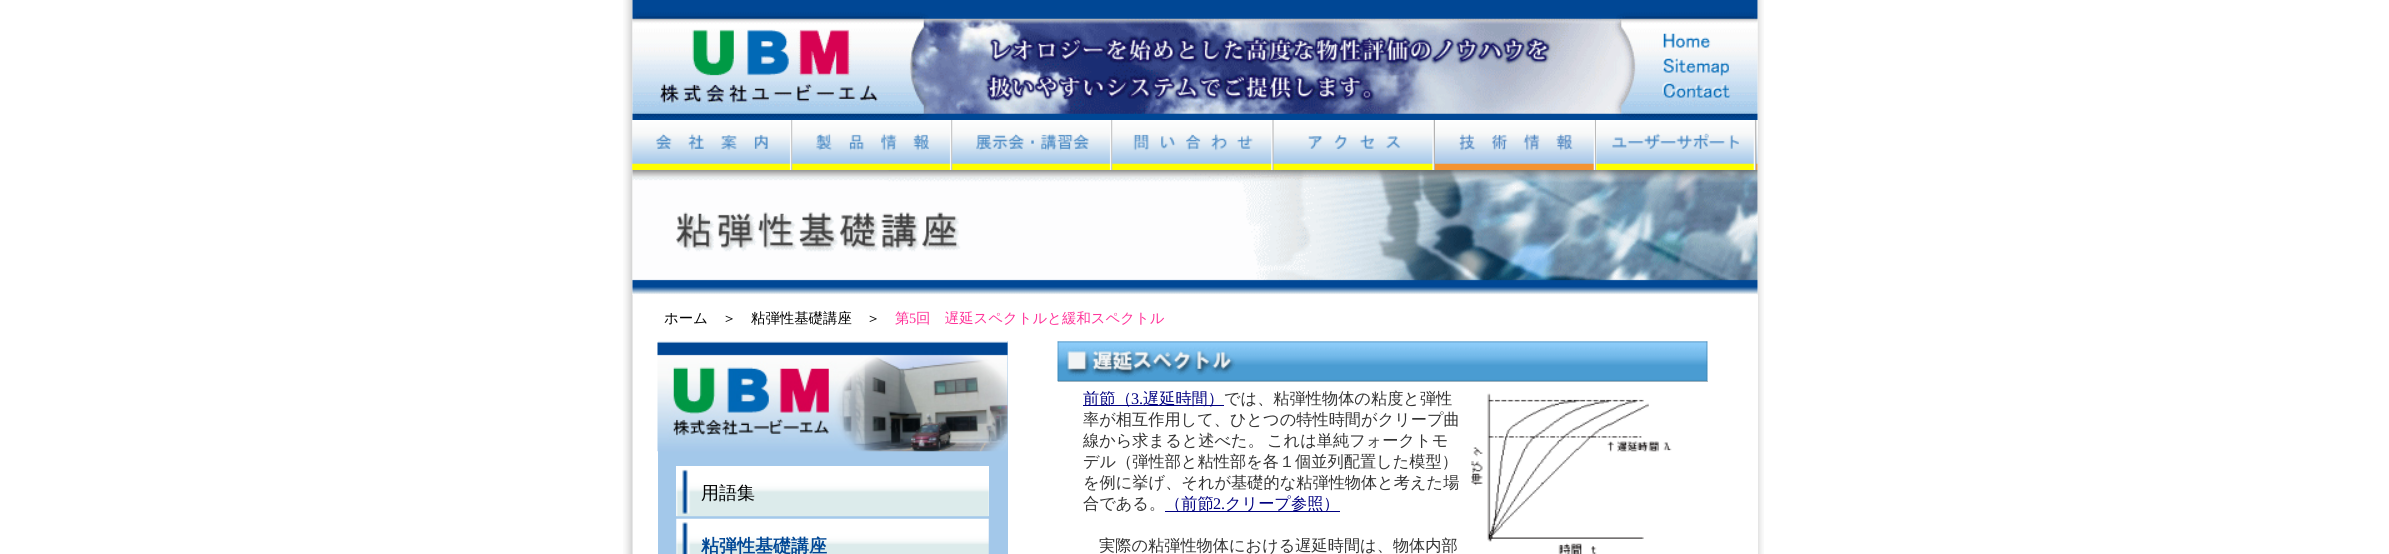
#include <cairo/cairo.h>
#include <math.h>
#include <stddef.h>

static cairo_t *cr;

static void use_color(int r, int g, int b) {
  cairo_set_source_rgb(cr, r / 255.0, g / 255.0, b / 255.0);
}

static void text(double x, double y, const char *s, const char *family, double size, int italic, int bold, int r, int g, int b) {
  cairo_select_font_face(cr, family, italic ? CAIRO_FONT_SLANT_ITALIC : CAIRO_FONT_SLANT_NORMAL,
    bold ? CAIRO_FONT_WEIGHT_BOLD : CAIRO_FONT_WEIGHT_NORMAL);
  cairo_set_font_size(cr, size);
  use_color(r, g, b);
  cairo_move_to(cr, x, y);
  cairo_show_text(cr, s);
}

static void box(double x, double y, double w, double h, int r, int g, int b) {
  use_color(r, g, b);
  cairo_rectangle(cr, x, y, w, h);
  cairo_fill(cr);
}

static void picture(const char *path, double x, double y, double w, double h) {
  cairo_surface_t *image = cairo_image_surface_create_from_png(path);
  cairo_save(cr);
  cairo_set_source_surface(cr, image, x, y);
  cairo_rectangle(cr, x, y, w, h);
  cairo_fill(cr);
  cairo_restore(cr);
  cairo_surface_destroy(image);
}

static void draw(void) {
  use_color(255, 255, 255);
  cairo_paint(cr);
  picture("img_01.png", 623, 0, 1141, 170);
  picture("img_02.png", 632, 0, 1126, 120);
  picture("img_03.png", 632, 120, 161, 50);
  picture("img_04.png", 632, 120, 161, 50);
  picture("img_05.png", 792, 120, 161, 50);
  picture("img_06.png", 792, 120, 161, 50);
  picture("img_07.png", 952, 120, 161, 50);
  picture("img_08.png", 952, 120, 161, 50);
  picture("img_09.png", 1112, 120, 162, 50);
  picture("img_10.png", 1112, 120, 162, 50);
  picture("img_11.png", 1273, 120, 1, 50);
  picture("img_12.png", 1273, 120, 162, 50);
  picture("img_13.png", 1435, 120, 161, 50);
  box(1757, 120, 1, 50, 255, 255, 255);
  picture("img_14.png", 1596, 120, 162, 50);
  picture("img_15.png", 623, 170, 1141, 125);
  picture("img_16.png", 632, 170, 1126, 125);
  picture("img_17.png", 623, 295, 1141, 259);
  box(1757, 295, 1, 259, 255, 255, 255);
  box(658, 341, 350, 213, 163, 200, 234);
  picture("img_18.png", 657, 341, 351, 111);
  box(676, 466, 313, 50, 255, 255, 255);
  picture("img_19.png", 676, 469, 313, 48);
  picture("img_20.png", 676, 518, 313, 36);
  box(1058, 381, 650, 1, 192, 192, 192);
  picture("img_21.png", 1057, 341, 651, 41);
  box(1083, 405, 141, 1, 0, 0, 128);
  picture("img_22.png", 1471, 393, 201, 161);
  box(1165, 511, 175, 1, 0, 0, 128);
  text(664, 323, "ホーム", "WenQuanYi Zen Hei Medium", 14.4, 0, 0, 0, 0, 0);
  text(722, 323, "＞", "WenQuanYi Zen Hei Medium", 14.4, 0, 0, 0, 0, 0);
  text(751, 323, "粘弾性基礎講座", "WenQuanYi Zen Hei Medium", 14.4, 0, 0, 0, 0, 0);
  text(866, 323, "＞", "WenQuanYi Zen Hei Medium", 14.4, 0, 0, 0, 0, 0);
  text(895, 323, "第", "WenQuanYi Zen Hei Medium", 14.4, 0, 0, 255, 51, 153);
  text(909, 323, "5", "Liberation Serif", 14.4, 0, 0, 255, 51, 153);
  text(916, 323, "回　遅延スペクトルと緩和スペクトル", "WenQuanYi Zen Hei Medium", 14.4, 0, 0, 255, 51, 153);
  text(701, 499, "用語集", "WenQuanYi Zen Hei Medium", 18, 0, 0, 0, 0, 0);
  text(701, 552, "粘弾性基礎講座", "WenQuanYi Zen Hei", 18, 0, 1, 0, 71, 149);
  text(1083, 404, "前節（", "WenQuanYi Zen Hei Medium", 16.2, 0, 0, 0, 0, 128);
  text(1131, 404, "3.", "Liberation Serif", 16.2, 0, 0, 0, 0, 128);
  text(1143, 404, "遅延時間）", "WenQuanYi Zen Hei Medium", 16.2, 0, 0, 0, 0, 128);
  text(1224, 404, "では、粘弾性物体の粘度と弾性", "WenQuanYi Zen Hei Medium", 16.2, 0, 0, 51, 51, 51);
  text(1083, 425, "率が相互作用して、ひとつの特性時間がクリープ曲", "WenQuanYi Zen Hei Medium", 16.2, 0, 0, 51, 51, 51);
  text(1083, 446, "線から求まると述べた。", "WenQuanYi Zen Hei Medium", 16.2, 0, 0, 51, 51, 51);
  text(1267, 446, "これは単純フォークトモ", "WenQuanYi Zen Hei Medium", 16.2, 0, 0, 51, 51, 51);
  text(1083, 467, "デル（弾性部と粘性部を各１個並列配置した模型）", "WenQuanYi Zen Hei Medium", 16.2, 0, 0, 51, 51, 51);
  text(1083, 488, "を例に挙げ、それが基礎的な粘弾性物体と考えた場", "WenQuanYi Zen Hei Medium", 16.2, 0, 0, 51, 51, 51);
  text(1083, 509, "合である。", "WenQuanYi Zen Hei Medium", 16.2, 0, 0, 51, 51, 51);
  text(1165, 509, "（前節", "WenQuanYi Zen Hei Medium", 16.2, 0, 0, 0, 0, 128);
  text(1213, 509, "2.", "Liberation Serif", 16.2, 0, 0, 0, 0, 128);
  text(1225, 509, "クリープ参照）", "WenQuanYi Zen Hei Medium", 16.2, 0, 0, 0, 0, 128);
  text(1099, 551, "実際の粘弾性物体における遅延時間は、物体内部", "WenQuanYi Zen Hei Medium", 16.2, 0, 0, 51, 51, 51);
}

int main(void) {
  cairo_surface_t *surface = cairo_image_surface_create(CAIRO_FORMAT_RGB24, 2389, 554);
  cr = cairo_create(surface);
  cairo_font_options_t *options = cairo_font_options_create();
  cairo_font_options_set_hint_metrics(options, CAIRO_HINT_METRICS_OFF);
  cairo_font_options_set_hint_style(options, CAIRO_HINT_STYLE_NONE);
  cairo_set_font_options(cr, options);
  cairo_set_miter_limit(cr, 4);
  draw();
  cairo_surface_write_to_png(surface, "out.png");
  cairo_font_options_destroy(options);
  cairo_destroy(cr);
  cairo_surface_destroy(surface);
  return 0;
}
